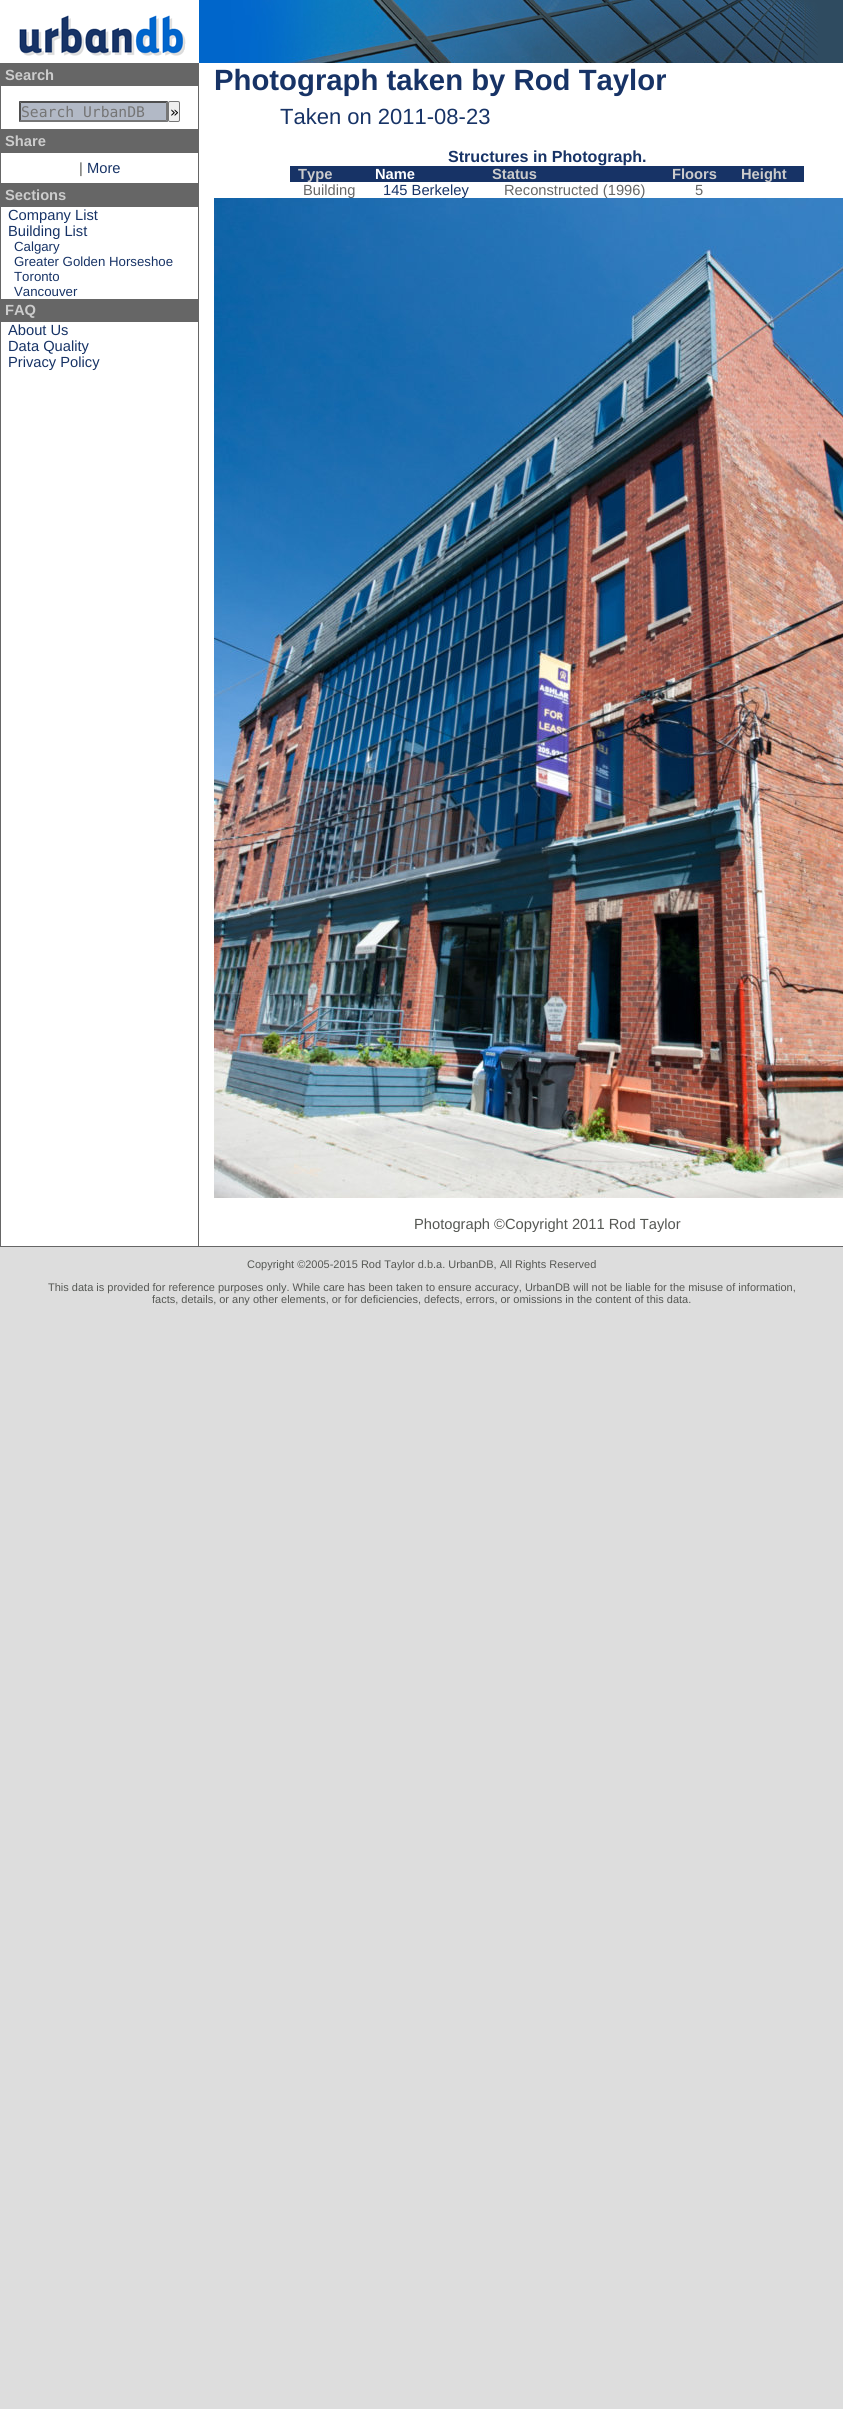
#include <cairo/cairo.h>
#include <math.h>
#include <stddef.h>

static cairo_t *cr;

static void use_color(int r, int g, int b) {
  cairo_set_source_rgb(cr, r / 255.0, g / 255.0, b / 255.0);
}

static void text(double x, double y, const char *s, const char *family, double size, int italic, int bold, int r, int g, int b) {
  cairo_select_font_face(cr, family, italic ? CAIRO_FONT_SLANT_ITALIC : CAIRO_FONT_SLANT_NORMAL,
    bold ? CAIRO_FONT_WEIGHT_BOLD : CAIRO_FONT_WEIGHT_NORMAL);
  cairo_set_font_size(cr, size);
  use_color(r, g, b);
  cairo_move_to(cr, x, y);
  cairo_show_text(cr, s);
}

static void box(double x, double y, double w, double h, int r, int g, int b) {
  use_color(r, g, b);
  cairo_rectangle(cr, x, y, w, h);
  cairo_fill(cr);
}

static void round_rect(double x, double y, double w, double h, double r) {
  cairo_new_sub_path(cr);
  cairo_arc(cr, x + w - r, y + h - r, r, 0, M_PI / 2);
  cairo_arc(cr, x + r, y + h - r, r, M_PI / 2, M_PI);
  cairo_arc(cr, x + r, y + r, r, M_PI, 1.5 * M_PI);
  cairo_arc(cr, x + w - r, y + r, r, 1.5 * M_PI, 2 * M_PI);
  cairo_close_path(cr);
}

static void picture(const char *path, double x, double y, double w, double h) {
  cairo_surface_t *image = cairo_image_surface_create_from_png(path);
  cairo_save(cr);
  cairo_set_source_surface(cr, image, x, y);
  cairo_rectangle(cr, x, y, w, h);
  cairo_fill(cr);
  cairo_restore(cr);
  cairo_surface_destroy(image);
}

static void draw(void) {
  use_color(221, 221, 221);
  cairo_paint(cr);
  box(0, 0, 199, 63, 255, 255, 255);
  picture("img_01.png", 19, 15, 167, 41);
  box(818, 0, 25, 63, 47, 75, 96);
  picture("img_02.png", 199, 0, 619, 63);
  box(1, 86, 197, 1160, 255, 255, 255);
  box(198, 63, 1, 1184, 102, 102, 102);
  box(0, 1246, 843, 1, 102, 102, 102);
  box(0, 63, 1, 1184, 102, 102, 102);
  box(1, 63, 197, 23, 102, 102, 102);
  box(19, 101, 149, 21, 178, 185, 198);
  use_color(79, 79, 79);
  cairo_new_path(cr);
  cairo_move_to(cr, 19, 101);
  cairo_line_to(cr, 168, 101);
  cairo_line_to(cr, 166, 103);
  cairo_line_to(cr, 21, 103);
  cairo_close_path(cr);
  cairo_fill(cr);
  use_color(118, 118, 118);
  cairo_new_path(cr);
  cairo_move_to(cr, 168, 101);
  cairo_line_to(cr, 168, 122);
  cairo_line_to(cr, 166, 120);
  cairo_line_to(cr, 166, 103);
  cairo_close_path(cr);
  cairo_fill(cr);
  cairo_new_path(cr);
  cairo_move_to(cr, 168, 122);
  cairo_line_to(cr, 19, 122);
  cairo_line_to(cr, 21, 120);
  cairo_line_to(cr, 166, 120);
  cairo_close_path(cr);
  cairo_fill(cr);
  use_color(79, 79, 79);
  cairo_new_path(cr);
  cairo_move_to(cr, 19, 122);
  cairo_line_to(cr, 19, 101);
  cairo_line_to(cr, 21, 103);
  cairo_line_to(cr, 21, 120);
  cairo_close_path(cr);
  cairo_fill(cr);
  use_color(239, 239, 239);
  round_rect(168.5, 101.5, 11, 20, 1.5);
  cairo_fill_preserve(cr);
  use_color(118, 118, 118);
  cairo_set_line_width(cr, 1);
  cairo_stroke(cr);
  box(1, 129, 197, 24, 102, 102, 102);
  box(1, 183, 197, 24, 102, 102, 102);
  box(1, 299, 197, 23, 102, 102, 102);
  box(199, 63, 644, 1183, 255, 255, 255);
  box(290, 166, 514, 16, 23, 51, 102);
  text(5, 80, "Search", "Liberation Sans", 14.7, 0, 1, 204, 204, 204);
  text(21, 117, "Search UrbanDB", "DejaVu Sans Mono", 14.7, 0, 0, 117, 117, 117);
  text(170, 117, "»", "DejaVu Sans Mono", 14.7, 0, 0, 0, 0, 0);
  text(5, 146, "Share", "Liberation Sans", 14.7, 0, 1, 204, 204, 204);
  text(79, 173, "|", "Liberation Sans", 14.7, 0, 0, 85, 87, 83);
  text(87, 173, "More", "Liberation Sans", 14.7, 0, 0, 23, 51, 102);
  text(5, 200, "Sections", "Liberation Sans", 14.7, 0, 1, 204, 204, 204);
  text(8, 220, "Company List", "Liberation Sans", 14.7, 0, 0, 23, 51, 102);
  text(8, 236, "Building List", "Liberation Sans", 14.7, 0, 0, 23, 51, 102);
  text(14, 251, "Calgary", "Liberation Sans", 13.25, 0, 0, 23, 51, 102);
  text(14, 266, "Greater Golden Horseshoe", "Liberation Sans", 13.25, 0, 0, 23, 51, 102);
  text(14, 281, "Toronto", "Liberation Sans", 13.25, 0, 0, 23, 51, 102);
  text(14, 296, "Vancouver", "Liberation Sans", 13.25, 0, 0, 23, 51, 102);
  text(5, 315, "FAQ", "Liberation Sans", 14.7, 0, 1, 204, 204, 204);
  text(8, 335, "About Us", "Liberation Sans", 14.7, 0, 0, 23, 51, 102);
  text(8, 351, "Data Quality", "Liberation Sans", 14.7, 0, 0, 23, 51, 102);
  text(8, 367, "Privacy Policy", "Liberation Sans", 14.7, 0, 0, 23, 51, 102);
  text(214, 90, "Photograph taken by Rod Taylor", "Liberation Sans", 29.3, 0, 1, 23, 51, 102);
  text(280, 124, "Taken on 2011-08-23", "Liberation Sans", 22, 0, 0, 23, 51, 102);
  text(448, 162, "Structures in Photograph.", "Liberation Sans", 16.1, 0, 1, 23, 51, 102);
  text(298, 179, "Type", "Liberation Sans", 14.7, 0, 1, 204, 204, 204);
  text(375, 179, "Name", "Liberation Sans", 14.7, 0, 1, 255, 255, 255);
  text(492, 179, "Status", "Liberation Sans", 14.7, 0, 1, 204, 204, 204);
  text(672, 179, "Floors", "Liberation Sans", 14.7, 0, 1, 204, 204, 204);
  text(741, 179, "Height", "Liberation Sans", 14.7, 0, 1, 204, 204, 204);
  text(303, 195, "Building", "Liberation Sans", 14.7, 0, 0, 102, 102, 102);
  text(383, 195, "145 Berkeley", "Liberation Sans", 14.7, 0, 0, 23, 51, 102);
  text(504, 195, "Reconstructed (1996)", "Liberation Sans", 14.7, 0, 0, 102, 102, 102);
  text(695, 195, "5", "Liberation Sans", 14.7, 0, 0, 102, 102, 102);
  picture("img_03.png", 214, 198, 629, 1000);
  text(414, 1229, "Photograph ©Copyright 2011 Rod Taylor", "Liberation Sans", 14.7, 0, 0, 85, 87, 83);
  text(247, 1268, "Copyright ©2005-2015 Rod Taylor d.b.a. UrbanDB, All Rights Reserved", "Liberation Sans", 11, 0, 0, 85, 87, 83);
  text(48, 1291, "This data is provided for reference purposes only. While care has been taken to ensure accuracy, UrbanDB will not be liable for the misuse of information,", "Liberation Sans", 11, 0, 0, 85, 87, 83);
  text(152, 1303, "facts, details, or any other elements, or for deficiencies, defects, errors, or omissions in the content of this data.", "Liberation Sans", 11, 0, 0, 85, 87, 83);
}

int main(void) {
  cairo_surface_t *surface = cairo_image_surface_create(CAIRO_FORMAT_RGB24, 843, 2409);
  cr = cairo_create(surface);
  cairo_font_options_t *options = cairo_font_options_create();
  cairo_font_options_set_hint_metrics(options, CAIRO_HINT_METRICS_OFF);
  cairo_font_options_set_hint_style(options, CAIRO_HINT_STYLE_NONE);
  cairo_set_font_options(cr, options);
  cairo_set_miter_limit(cr, 4);
  draw();
  cairo_surface_write_to_png(surface, "out.png");
  cairo_font_options_destroy(options);
  cairo_destroy(cr);
  cairo_surface_destroy(surface);
  return 0;
}
